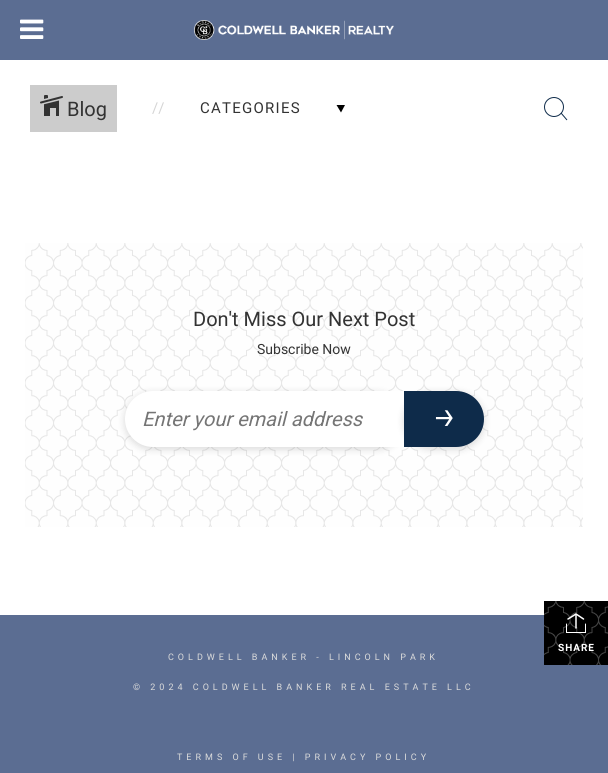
#include <cairo/cairo.h>
#include <math.h>
#include <stddef.h>

static cairo_t *cr;

static void use_color(int r, int g, int b) {
  cairo_set_source_rgb(cr, r / 255.0, g / 255.0, b / 255.0);
}

static void text(double x, double y, const char *s, const char *family, double size, int italic, int bold, int r, int g, int b) {
  cairo_select_font_face(cr, family, italic ? CAIRO_FONT_SLANT_ITALIC : CAIRO_FONT_SLANT_NORMAL,
    bold ? CAIRO_FONT_WEIGHT_BOLD : CAIRO_FONT_WEIGHT_NORMAL);
  cairo_set_font_size(cr, size);
  use_color(r, g, b);
  cairo_move_to(cr, x, y);
  cairo_show_text(cr, s);
}

static void spaced_text(double x, double y, const char *s, double letter, double word) {
  cairo_move_to(cr, x, y);
  while (*s) {
    char ch[5] = {0};
    int n = 0;
    do ch[n++] = *s++; while ((*s & 0xC0) == 0x80);
    cairo_show_text(cr, ch);
    cairo_rel_move_to(cr, letter + word * (*ch == ' '), 0);
  }
}

static void box(double x, double y, double w, double h, int r, int g, int b) {
  use_color(r, g, b);
  cairo_rectangle(cr, x, y, w, h);
  cairo_fill(cr);
}

static void round_rect(double x, double y, double w, double h, double r) {
  cairo_new_sub_path(cr);
  cairo_arc(cr, x + w - r, y + h - r, r, 0, M_PI / 2);
  cairo_arc(cr, x + r, y + h - r, r, M_PI / 2, M_PI);
  cairo_arc(cr, x + r, y + r, r, M_PI, 1.5 * M_PI);
  cairo_arc(cr, x + w - r, y + r, r, 1.5 * M_PI, 2 * M_PI);
  cairo_close_path(cr);
}

static void shadow(double x, double y, double w, double h, double r, double blur, double alpha) {
  cairo_push_group_with_content(cr, CAIRO_CONTENT_ALPHA);
  cairo_set_operator(cr, CAIRO_OPERATOR_SOURCE);
  for (int i = 15; i >= -15 && fmin(w, h) + blur * i / 3 > 0; i -= 2) {
    double e = blur * i / 6;
    cairo_set_source_rgba(cr, 0, 0, 0, alpha * erfc((i - 1) / 8.5) / 2);
    round_rect(x - e, y - e, w + 2 * e, h + 2 * e, fmax(0, fmin(r + e + blur * .6, fmin(w, h) / 2 + e)));
    cairo_fill(cr);
  }
  cairo_pattern_t *soft = cairo_pop_group(cr);
  cairo_mask(cr, soft);
  cairo_pattern_destroy(soft);
}

static void picture(const char *path, double x, double y, double w, double h) {
  cairo_surface_t *image = cairo_image_surface_create_from_png(path);
  cairo_save(cr);
  cairo_set_source_surface(cr, image, x, y);
  cairo_rectangle(cr, x, y, w, h);
  cairo_fill(cr);
  cairo_restore(cr);
  cairo_surface_destroy(image);
}

static void draw(void) {
  use_color(255, 255, 255);
  cairo_paint(cr);
  box(0, 0, 608, 60, 91, 109, 146);
  picture("img_01.png", 20, 19, 24, 20);
  picture("img_02.png", 194, 20, 200, 20);
  box(30, 85, 87, 47, 204, 204, 204);
  picture("img_03.png", 40, 95, 23, 21);
  use_color(0, 0, 0);
  cairo_new_path(cr);
  cairo_move_to(cr, 341, 112.5);
  cairo_line_to(cr, 345, 105);
  cairo_line_to(cr, 336.5, 105);
  cairo_close_path(cr);
  cairo_fill(cr);
  cairo_arc(cr, 554, 107, 9.5, 0, 2 * M_PI);
  use_color(14, 43, 74);
  cairo_set_line_width(cr, 1);
  cairo_stroke(cr);
  cairo_new_path(cr);
  cairo_move_to(cr, 561, 113);
  cairo_line_to(cr, 567, 120);
  cairo_stroke(cr);
  box(0, 615, 608, 158, 91, 109, 146);
  picture("img_04.png", 544, 601, 64, 64);
  picture("img_05.png", 566, 613, 20, 20);
  box(25, 243, 558, 284, 252, 252, 252);
  picture("img_06.png", 25, 243, 558, 284);
  use_color(0, 0, 0);
  shadow(125, 393, 279, 56, 28, 4, 0.15);
  use_color(255, 255, 255);
  cairo_new_path(cr);
  cairo_move_to(cr, 153, 391);
  cairo_line_to(cr, 404, 391);
  cairo_line_to(cr, 404, 447);
  cairo_line_to(cr, 153, 447);
  cairo_curve_to(cr, 137.5, 447, 125, 434.5, 125, 419);
  cairo_curve_to(cr, 125, 403.5, 137.5, 391, 153, 391);
  cairo_close_path(cr);
  cairo_fill(cr);
  use_color(0, 0, 0);
  shadow(404, 393, 80, 56, 28, 4, 0.15);
  use_color(14, 43, 74);
  cairo_new_path(cr);
  cairo_move_to(cr, 404, 391);
  cairo_line_to(cr, 456, 391);
  cairo_curve_to(cr, 471.5, 391, 484, 403.5, 484, 419);
  cairo_curve_to(cr, 484, 434.5, 471.5, 447, 456, 447);
  cairo_line_to(cr, 404, 447);
  cairo_close_path(cr);
  cairo_fill(cr);
  picture("img_07.png", 435, 410, 18, 16);
  text(67, 116, "Blog", "Roboto", 20, 0, 0, 51, 51, 51);
  text(152, 113, "//", "Roboto", 15, 0, 0, 213, 213, 213);
  use_color(51, 51, 51);
  spaced_text(200, 113, "CATEGORIES", 1.25, 0);
  cairo_select_font_face(cr, "Roboto", CAIRO_FONT_SLANT_NORMAL, CAIRO_FONT_WEIGHT_BOLD);
  cairo_set_font_size(cr, 10);
  use_color(255, 255, 255);
  spaced_text(558, 651, "SHARE", 1, 0);
  text(193, 326, "Don't Miss Our Next Post", "Roboto", 20, 0, 0, 51, 51, 51);
  text(257, 354, "Subscribe Now", "Roboto", 14, 0, 0, 51, 51, 51);
  text(142, 426, "Enter your email address", "Roboto", 20, 1, 0, 117, 117, 117);
  cairo_select_font_face(cr, "Roboto", CAIRO_FONT_SLANT_NORMAL, CAIRO_FONT_WEIGHT_NORMAL);
  cairo_set_font_size(cr, 9);
  use_color(219, 219, 219);
  spaced_text(168, 660, "COLDWELL BANKER - LINCOLN PARK", 4, 0);
  spaced_text(133, 690, "© 2024 COLDWELL BANKER REAL ESTATE LLC", 4, 0);
  spaced_text(177, 760, "TERMS OF USE | PRIVACY POLICY", 4, 0);
}

int main(void) {
  cairo_surface_t *surface = cairo_image_surface_create(CAIRO_FORMAT_RGB24, 608, 773);
  cr = cairo_create(surface);
  cairo_font_options_t *options = cairo_font_options_create();
  cairo_font_options_set_hint_metrics(options, CAIRO_HINT_METRICS_OFF);
  cairo_font_options_set_hint_style(options, CAIRO_HINT_STYLE_NONE);
  cairo_set_font_options(cr, options);
  cairo_set_miter_limit(cr, 4);
  draw();
  cairo_surface_write_to_png(surface, "out.png");
  cairo_font_options_destroy(options);
  cairo_destroy(cr);
  cairo_surface_destroy(surface);
  return 0;
}
